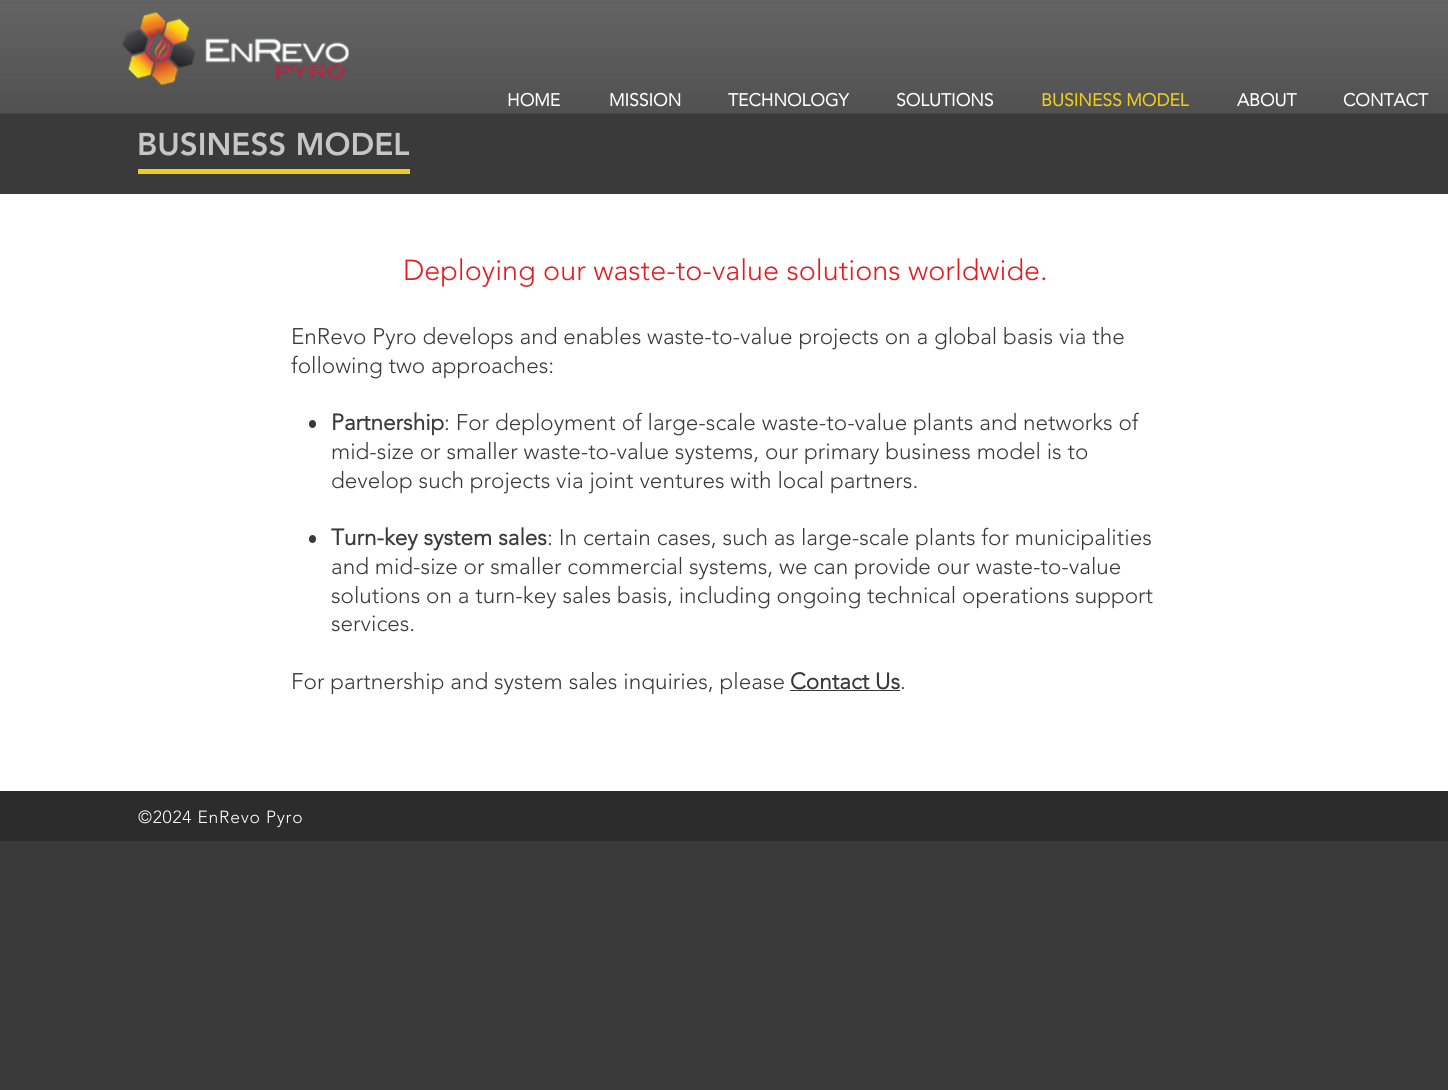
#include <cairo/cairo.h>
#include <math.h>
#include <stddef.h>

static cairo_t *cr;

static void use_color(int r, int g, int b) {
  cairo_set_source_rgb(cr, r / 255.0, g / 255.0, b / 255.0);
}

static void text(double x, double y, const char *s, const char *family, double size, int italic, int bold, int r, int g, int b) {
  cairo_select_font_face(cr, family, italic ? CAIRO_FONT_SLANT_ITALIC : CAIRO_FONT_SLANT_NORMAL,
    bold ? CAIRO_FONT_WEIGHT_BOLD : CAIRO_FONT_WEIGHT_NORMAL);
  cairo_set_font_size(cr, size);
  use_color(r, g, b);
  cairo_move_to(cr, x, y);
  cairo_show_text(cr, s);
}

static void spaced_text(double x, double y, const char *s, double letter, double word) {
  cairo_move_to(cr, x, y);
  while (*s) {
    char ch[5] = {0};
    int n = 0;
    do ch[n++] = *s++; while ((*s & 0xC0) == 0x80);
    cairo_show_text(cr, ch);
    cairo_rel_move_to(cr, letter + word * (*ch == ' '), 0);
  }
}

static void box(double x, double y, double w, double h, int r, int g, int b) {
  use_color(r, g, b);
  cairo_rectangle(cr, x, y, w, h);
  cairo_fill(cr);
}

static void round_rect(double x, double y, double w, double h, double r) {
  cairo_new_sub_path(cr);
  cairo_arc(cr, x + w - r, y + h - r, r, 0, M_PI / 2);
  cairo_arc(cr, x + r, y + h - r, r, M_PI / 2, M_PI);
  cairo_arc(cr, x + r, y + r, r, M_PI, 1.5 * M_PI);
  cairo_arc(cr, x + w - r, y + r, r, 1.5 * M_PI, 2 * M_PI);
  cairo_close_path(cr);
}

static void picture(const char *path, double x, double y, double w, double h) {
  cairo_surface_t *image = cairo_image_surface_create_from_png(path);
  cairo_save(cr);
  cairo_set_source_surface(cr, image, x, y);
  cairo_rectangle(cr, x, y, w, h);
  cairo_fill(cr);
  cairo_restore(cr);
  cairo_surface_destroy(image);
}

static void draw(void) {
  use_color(59, 58, 58);
  cairo_paint(cr);
  box(0, 0, 1448, 114, 47, 46, 46);
  picture("img_01.png", 0, 0, 1448, 114);
  picture("img_02.png", 122, 12, 227, 73);
  box(138, 169, 272, 5, 237, 205, 31);
  box(0, 194, 1448, 597, 255, 255, 255);
  use_color(59, 58, 58);
  round_rect(309, 420, 7, 8, 3.5);
  cairo_fill(cr);
  round_rect(309, 535, 7, 8, 3.5);
  cairo_fill(cr);
  box(790, 690, 110, 1, 59, 58, 58);
  box(0, 791, 1448, 50, 45, 44, 44);
  text(507, 106, "HOME", "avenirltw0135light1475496", 17.5, 0, 1, 255, 255, 255);
  text(609, 106, "MISSION", "avenirltw0135light1475496", 17.5, 0, 1, 255, 255, 255);
  text(728, 106, "TECHNOLOGY", "avenirltw0135light1475496", 17.5, 0, 1, 255, 255, 255);
  text(896, 106, "SOLUTIONS", "avenirltw0135light1475496", 17.5, 0, 1, 255, 255, 255);
  text(1041, 106, "BUSINESS MODEL", "avenirltw0135light1475496", 17.5, 0, 1, 237, 205, 31);
  text(1237, 106, "ABOUT", "avenirltw0135light1475496", 17.5, 0, 1, 255, 255, 255);
  text(1343, 106, "CONTACT", "avenirltw0135light1475496", 17.5, 0, 1, 255, 255, 255);
  text(137, 155, "BUSINESS MODEL", "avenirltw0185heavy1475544 Black", 31.25, 0, 0, 198, 198, 198);
  text(403, 280, "Deploying our waste-to-value solutions worldwide.", "avenirltw0135light1475496 Light", 28.75, 0, 0, 226, 28, 33);
  text(291, 344, "EnRevo Pyro develops and enables waste-to-value projects on a global basis via the", "avenirltw0135light1475496 Light", 22.5, 0, 0, 59, 58, 58);
  text(291, 373, "following two approaches:", "avenirltw0135light1475496 Light", 22.5, 0, 0, 59, 58, 58);
  text(331, 430, "Partnership", "avenirltw0135light1475496", 22.5, 0, 1, 59, 58, 58);
  text(444, 430, ": For deployment of large-scale waste-to-value plants and networks of", "avenirltw0135light1475496 Light", 22.5, 0, 0, 59, 58, 58);
  text(331, 459, "mid-size or smaller waste-to-value systems, our primary business model is to", "avenirltw0135light1475496 Light", 22.5, 0, 0, 59, 58, 58);
  text(331, 488, "develop such projects via joint ventures with local partners.", "avenirltw0135light1475496 Light", 22.5, 0, 0, 59, 58, 58);
  text(331, 545, "Turn-key system sales", "avenirltw0135light1475496", 22.5, 0, 1, 59, 58, 58);
  text(547, 545, ": In certain cases, such as large-scale plants for municipalities", "avenirltw0135light1475496 Light", 22.5, 0, 0, 59, 58, 58);
  text(331, 574, "and mid-size or smaller commercial systems, we can provide our waste-to-value", "avenirltw0135light1475496 Light", 22.5, 0, 0, 59, 58, 58);
  text(331, 603, "solutions on a turn-key sales basis, including ongoing technical operations support", "avenirltw0135light1475496 Light", 22.5, 0, 0, 59, 58, 58);
  text(331, 631, "services.", "avenirltw0135light1475496 Light", 22.5, 0, 0, 59, 58, 58);
  text(291, 689, "For partnership and system sales inquiries, please", "avenirltw0135light1475496 Light", 22.5, 0, 0, 59, 58, 58);
  text(790, 689, "Contact Us", "avenirltw0135light1475496", 22.5, 0, 1, 59, 58, 58);
  text(900, 689, ".", "avenirltw0135light1475496 Light", 22.5, 0, 0, 59, 58, 58);
  cairo_set_font_size(cr, 17.5);
  use_color(255, 255, 255);
  spaced_text(138, 823, "©2024 EnRevo Pyro", 0.75, 0);
}

int main(void) {
  cairo_surface_t *surface = cairo_image_surface_create(CAIRO_FORMAT_RGB24, 1448, 1090);
  cr = cairo_create(surface);
  cairo_font_options_t *options = cairo_font_options_create();
  cairo_font_options_set_hint_metrics(options, CAIRO_HINT_METRICS_OFF);
  cairo_font_options_set_hint_style(options, CAIRO_HINT_STYLE_NONE);
  cairo_set_font_options(cr, options);
  cairo_set_miter_limit(cr, 4);
  draw();
  cairo_surface_write_to_png(surface, "out.png");
  cairo_font_options_destroy(options);
  cairo_destroy(cr);
  cairo_surface_destroy(surface);
  return 0;
}
